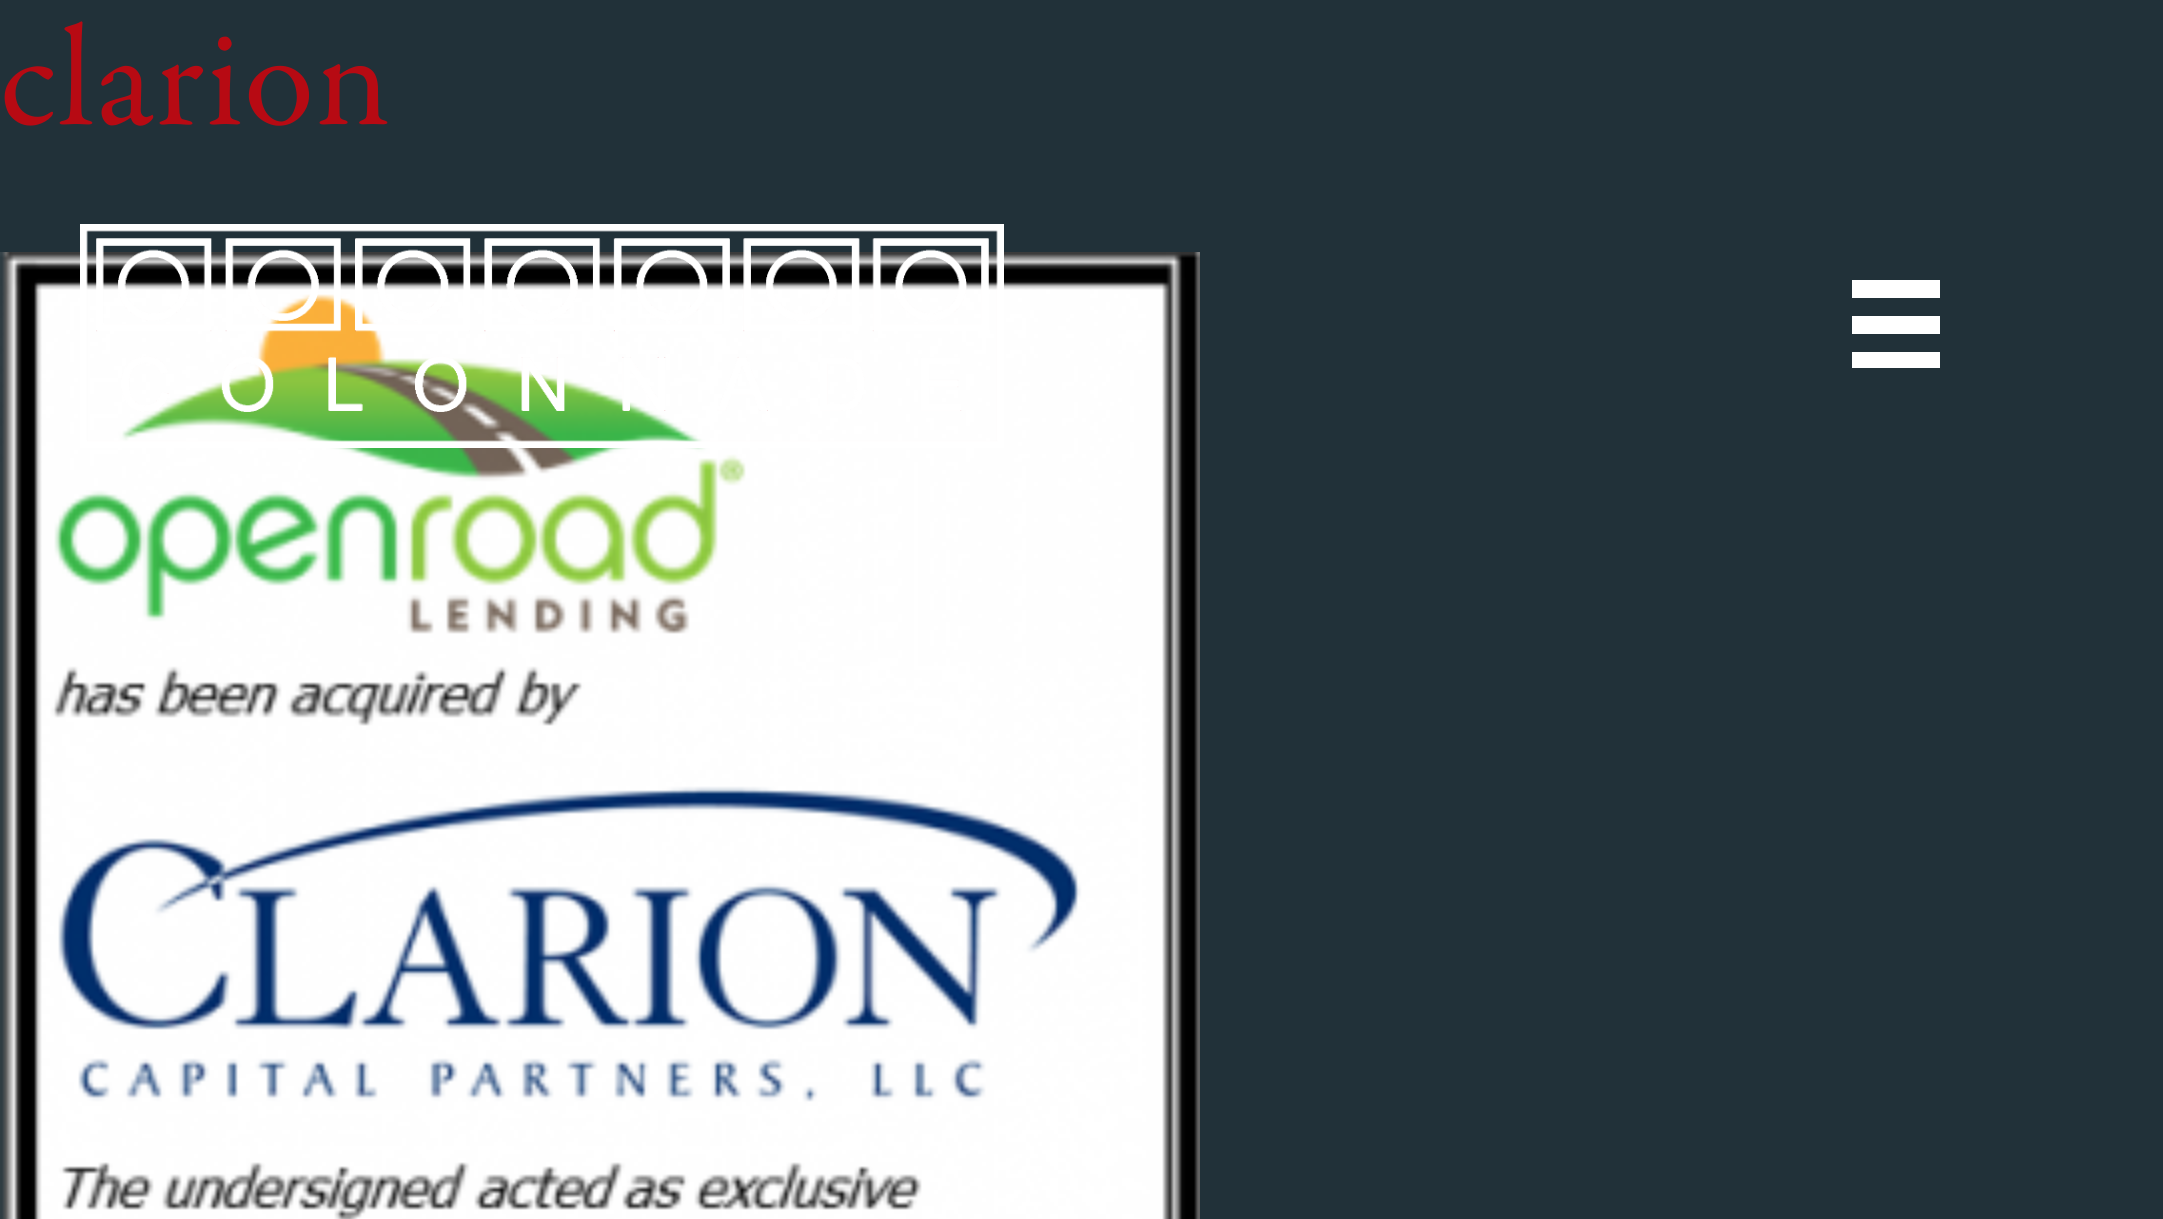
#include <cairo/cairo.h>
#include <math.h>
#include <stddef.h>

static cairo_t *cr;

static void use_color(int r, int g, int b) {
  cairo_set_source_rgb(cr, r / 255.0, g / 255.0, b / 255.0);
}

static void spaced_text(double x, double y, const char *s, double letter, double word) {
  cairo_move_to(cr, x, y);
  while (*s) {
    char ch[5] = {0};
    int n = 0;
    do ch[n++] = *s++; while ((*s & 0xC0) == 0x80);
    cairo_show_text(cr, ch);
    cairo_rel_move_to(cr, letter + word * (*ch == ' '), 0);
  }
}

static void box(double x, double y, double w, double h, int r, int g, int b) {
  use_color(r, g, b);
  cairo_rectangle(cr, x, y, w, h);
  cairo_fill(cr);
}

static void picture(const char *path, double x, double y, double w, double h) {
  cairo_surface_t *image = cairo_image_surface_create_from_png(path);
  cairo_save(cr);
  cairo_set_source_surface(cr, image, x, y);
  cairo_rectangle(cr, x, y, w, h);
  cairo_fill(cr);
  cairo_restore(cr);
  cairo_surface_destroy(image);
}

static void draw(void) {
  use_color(33, 49, 57);
  cairo_paint(cr);
  picture("img_01.png", 0, 252, 1200, 967);
  picture("img_02.png", 80, 224, 924, 224);
  box(1852, 280, 88, 18, 255, 255, 255);
  box(1852, 316, 88, 18, 255, 255, 255);
  box(1852, 352, 88, 16, 255, 255, 255);
  cairo_select_font_face(cr, "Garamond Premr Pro", CAIRO_FONT_SLANT_NORMAL, CAIRO_FONT_WEIGHT_NORMAL);
  cairo_set_font_size(cr, 144);
  use_color(183, 10, 19);
  spaced_text(0, 124, "clarion", 2, 0);
}

int main(void) {
  cairo_surface_t *surface = cairo_image_surface_create(CAIRO_FORMAT_RGB24, 2163, 1219);
  cr = cairo_create(surface);
  cairo_font_options_t *options = cairo_font_options_create();
  cairo_font_options_set_hint_metrics(options, CAIRO_HINT_METRICS_OFF);
  cairo_font_options_set_hint_style(options, CAIRO_HINT_STYLE_NONE);
  cairo_set_font_options(cr, options);
  cairo_set_miter_limit(cr, 4);
  draw();
  cairo_surface_write_to_png(surface, "out.png");
  cairo_font_options_destroy(options);
  cairo_destroy(cr);
  cairo_surface_destroy(surface);
  return 0;
}
